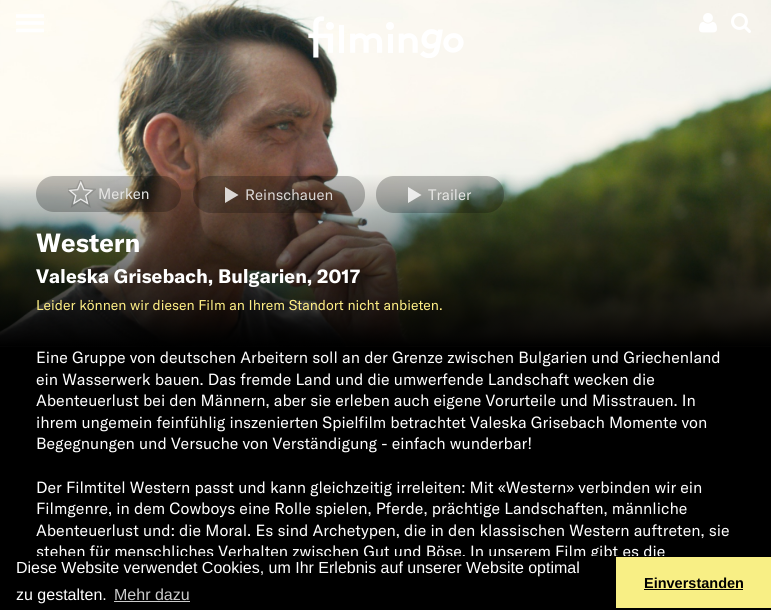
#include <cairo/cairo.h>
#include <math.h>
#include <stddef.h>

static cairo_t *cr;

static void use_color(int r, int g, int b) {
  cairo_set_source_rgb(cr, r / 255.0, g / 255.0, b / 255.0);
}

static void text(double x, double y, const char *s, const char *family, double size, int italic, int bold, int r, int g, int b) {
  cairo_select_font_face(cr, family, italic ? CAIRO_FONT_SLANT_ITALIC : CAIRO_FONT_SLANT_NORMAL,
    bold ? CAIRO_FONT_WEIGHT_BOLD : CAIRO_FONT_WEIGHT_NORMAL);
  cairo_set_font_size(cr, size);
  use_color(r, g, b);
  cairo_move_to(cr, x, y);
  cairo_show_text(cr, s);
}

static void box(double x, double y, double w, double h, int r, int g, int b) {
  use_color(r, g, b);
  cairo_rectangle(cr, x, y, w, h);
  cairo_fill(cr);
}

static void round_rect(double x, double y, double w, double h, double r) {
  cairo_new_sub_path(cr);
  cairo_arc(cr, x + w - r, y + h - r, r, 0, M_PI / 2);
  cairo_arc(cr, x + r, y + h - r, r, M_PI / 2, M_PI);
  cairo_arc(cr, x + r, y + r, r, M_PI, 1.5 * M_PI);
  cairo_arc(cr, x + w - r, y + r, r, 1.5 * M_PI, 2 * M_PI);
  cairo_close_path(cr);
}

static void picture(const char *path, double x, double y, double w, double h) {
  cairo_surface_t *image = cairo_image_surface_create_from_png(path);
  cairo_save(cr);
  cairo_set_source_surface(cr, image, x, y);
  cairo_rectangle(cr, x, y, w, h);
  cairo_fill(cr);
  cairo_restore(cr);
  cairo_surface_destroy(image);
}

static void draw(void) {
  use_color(0, 0, 0);
  cairo_paint(cr);
  picture("img_04.png", 0, 0, 771, 347);
  cairo_new_path(cr);
  cairo_move_to(cr, 16, 16);
  cairo_line_to(cr, 44, 16);
  cairo_move_to(cr, 16, 23);
  cairo_line_to(cr, 44, 23);
  cairo_move_to(cr, 16, 30.5);
  cairo_line_to(cr, 44, 30.5);
  use_color(255, 255, 255);
  cairo_set_line_width(cr, 3.6);
  cairo_stroke(cr);
  cairo_arc(cr, 330, 26, 4, 0, 2 * M_PI);
  cairo_fill(cr);
  cairo_arc(cr, 390, 26, 4, 0, 2 * M_PI);
  cairo_fill(cr);
  picture("img_01.png", 308, 16, 156, 42);
  picture("img_02.png", 699, 13, 18, 20);
  picture("img_03.png", 731, 13, 20, 20);
  cairo_set_source_rgba(cr, 0, 0, 0, 0.24);
  round_rect(36, 176, 145, 36, 18);
  cairo_fill(cr);
  picture("img_05.png", 68, 180, 28, 28);
  round_rect(193, 176, 172, 37, 18);
  cairo_fill(cr);
  cairo_set_source_rgba(cr, 1, 1, 1, 0.8);
  cairo_new_path(cr);
  cairo_move_to(cr, 225, 203);
  cairo_line_to(cr, 238.5, 195);
  cairo_line_to(cr, 225, 187);
  cairo_close_path(cr);
  cairo_fill(cr);
  cairo_set_source_rgba(cr, 0, 0, 0, 0.24);
  round_rect(376, 176, 128, 37, 18);
  cairo_fill(cr);
  cairo_set_source_rgba(cr, 1, 1, 1, 0.8);
  cairo_new_path(cr);
  cairo_move_to(cr, 408, 203);
  cairo_line_to(cr, 421.5, 195);
  cairo_line_to(cr, 408, 187);
  cairo_close_path(cr);
  cairo_fill(cr);
  box(114, 601, 76, 1, 204, 204, 204);
  text(98, 199, "Merken", "GT America", 15, 0, 0, 229, 229, 227);
  text(245, 200, "Reinschauen", "GT America", 15, 0, 0, 218, 214, 212);
  text(428, 200, "Trailer", "GT America", 15, 0, 0, 229, 229, 227);
  text(36, 252, "Western", "GT America", 26, 0, 1, 255, 255, 255);
  text(36, 283, "Valeska Grisebach, Bulgarien, 2017", "GT America", 19.25, 0, 1, 255, 255, 255);
  text(36, 310, "Leider können wir diesen Film an Ihrem Standort nicht anbieten.", "GT America", 14, 0, 0, 255, 239, 133);
  text(36, 363, "Eine Gruppe von deutschen Arbeitern soll an der Grenze zwischen Bulgarien und Griechenland", "GT America", 16, 0, 0, 255, 255, 255);
  text(36, 385, "ein Wasserwerk bauen. Das fremde Land und die umwerfende Landschaft wecken die", "GT America", 16, 0, 0, 255, 255, 255);
  text(36, 406, "Abenteuerlust bei den Männern, aber sie erleben auch eigene Vorurteile und Misstrauen. In", "GT America", 16, 0, 0, 255, 255, 255);
  text(36, 428, "ihrem ungemein feinfühlig inszenierten Spielfilm betrachtet Valeska Grisebach Momente von", "GT America", 16, 0, 0, 255, 255, 255);
  text(36, 449, "Begegnungen und Versuche von Verständigung - einfach wunderbar!", "GT America", 16, 0, 0, 255, 255, 255);
  text(36, 493, "Der Filmtitel Western passt und kann gleichzeitig irreleiten: Mit «Western» verbinden wir ein", "GT America", 16, 0, 0, 255, 255, 255);
  text(36, 514, "Filmgenre, in dem Cowboys eine Rolle spielen, Pferde, prächtige Landschaften, männliche", "GT America", 16, 0, 0, 255, 255, 255);
  text(36, 536, "Abenteuerlust und: die Moral. Es sind Archetypen, die in den klassischen Western auftreten, sie", "GT America", 16, 0, 0, 255, 255, 255);
  text(36, 557, "stehen für menschliches Verhalten zwischen Gut und Böse. In unserem Film gibt es die", "GT America", 16, 0, 0, 255, 255, 255);
  box(36, 556, 628, 5, 0, 0, 0);
  text(16, 573, "Diese Website verwendet Cookies, um Ihr Erlebnis auf unserer Website optimal", "Liberation Sans", 16, 0, 0, 255, 255, 255);
  text(16, 600, "zu gestalten.", "Liberation Sans", 16, 0, 0, 255, 255, 255);
  text(114, 600, "Mehr dazu", "Liberation Sans", 16, 0, 0, 204, 204, 204);
  box(616, 557, 155, 51, 248, 239, 133);
  text(644, 588, "Einverstanden", "Liberation Sans", 14.5, 0, 1, 0, 0, 0);
  box(644, 589, 99, 1, 0, 0, 0);
}

int main(void) {
  cairo_surface_t *surface = cairo_image_surface_create(CAIRO_FORMAT_RGB24, 771, 610);
  cr = cairo_create(surface);
  cairo_font_options_t *options = cairo_font_options_create();
  cairo_font_options_set_hint_metrics(options, CAIRO_HINT_METRICS_OFF);
  cairo_font_options_set_hint_style(options, CAIRO_HINT_STYLE_NONE);
  cairo_set_font_options(cr, options);
  cairo_set_miter_limit(cr, 4);
  draw();
  cairo_surface_write_to_png(surface, "out.png");
  cairo_font_options_destroy(options);
  cairo_destroy(cr);
  cairo_surface_destroy(surface);
  return 0;
}
